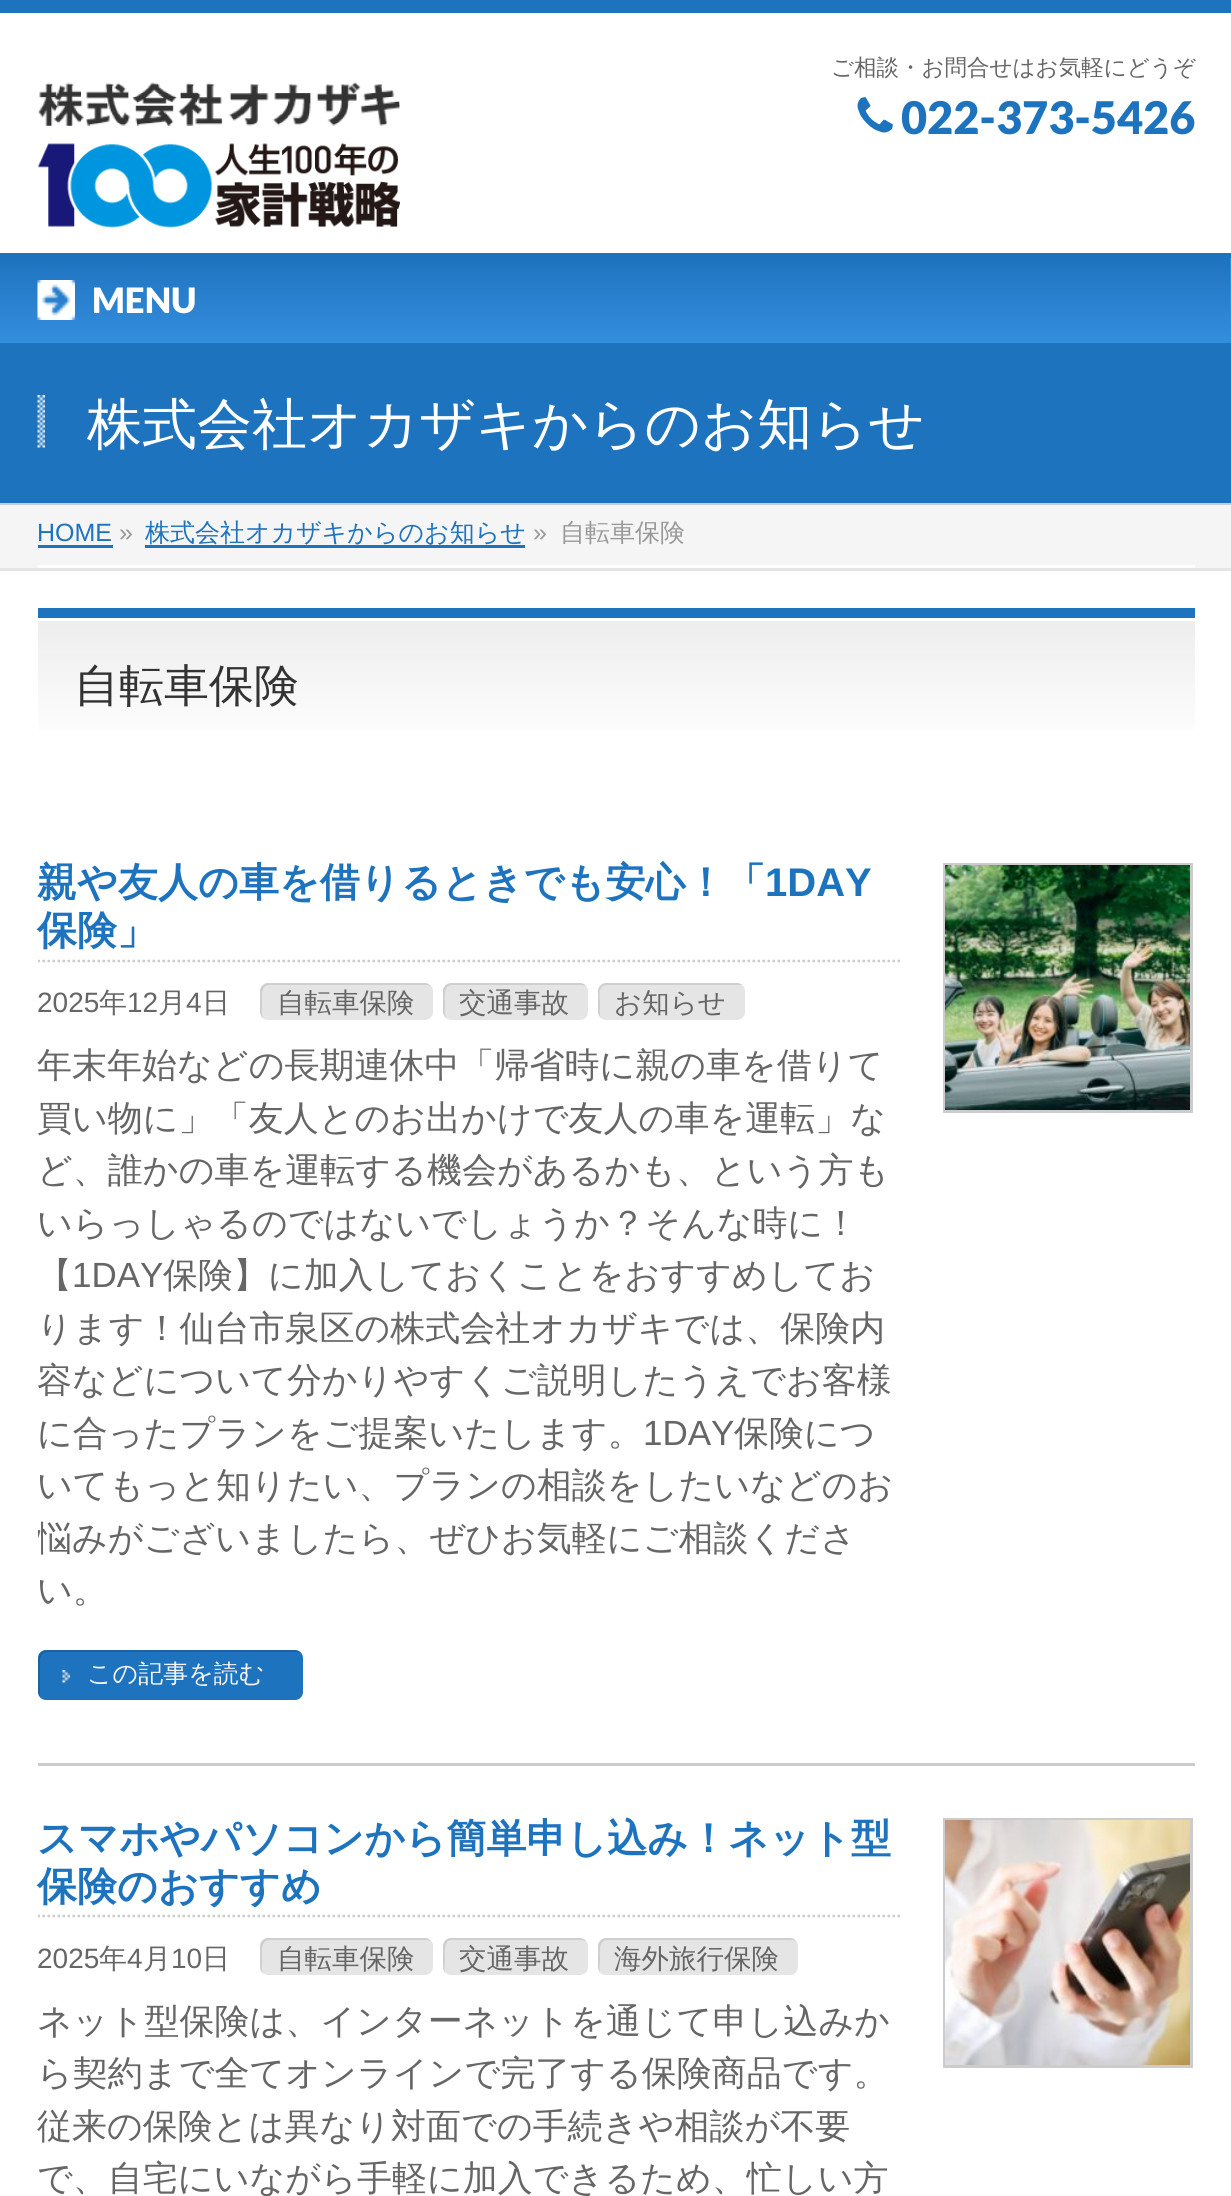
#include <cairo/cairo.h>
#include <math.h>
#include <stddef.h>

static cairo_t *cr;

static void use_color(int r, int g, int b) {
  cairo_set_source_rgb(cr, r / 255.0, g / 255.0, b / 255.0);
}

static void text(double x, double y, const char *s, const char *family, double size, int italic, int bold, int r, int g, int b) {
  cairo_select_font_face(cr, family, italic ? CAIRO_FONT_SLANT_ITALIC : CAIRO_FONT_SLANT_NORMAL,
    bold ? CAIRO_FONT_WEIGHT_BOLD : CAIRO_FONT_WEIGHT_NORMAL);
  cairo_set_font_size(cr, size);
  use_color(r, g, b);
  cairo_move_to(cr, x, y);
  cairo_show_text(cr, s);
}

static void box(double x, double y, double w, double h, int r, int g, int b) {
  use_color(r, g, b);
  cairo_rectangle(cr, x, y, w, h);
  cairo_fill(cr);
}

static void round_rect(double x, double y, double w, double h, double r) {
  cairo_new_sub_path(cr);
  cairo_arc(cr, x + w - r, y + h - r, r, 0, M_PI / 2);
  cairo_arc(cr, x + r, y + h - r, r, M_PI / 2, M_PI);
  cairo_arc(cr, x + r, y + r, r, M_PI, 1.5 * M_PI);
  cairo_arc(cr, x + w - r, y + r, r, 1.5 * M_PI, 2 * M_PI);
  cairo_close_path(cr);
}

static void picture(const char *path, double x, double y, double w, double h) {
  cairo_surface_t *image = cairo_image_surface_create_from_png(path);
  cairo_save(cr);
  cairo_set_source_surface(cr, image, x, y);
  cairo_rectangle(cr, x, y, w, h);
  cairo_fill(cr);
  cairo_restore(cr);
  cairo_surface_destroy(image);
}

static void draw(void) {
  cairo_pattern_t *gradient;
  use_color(255, 255, 255);
  cairo_paint(cr);
  box(0, 0, 1231, 13, 30, 115, 190);
  picture("img_01.png", 37, 82, 363, 146);
  picture("img_02.png", 857, 97, 36, 36);
  box(0, 253, 1231, 5, 30, 115, 190);
  gradient = cairo_pattern_create_linear(615, 257, 615, 343);
  cairo_pattern_add_color_stop_rgba(gradient, 0, 0.118, 0.451, 0.745, 1);
  cairo_pattern_add_color_stop_rgba(gradient, 1, 0.204, 0.557, 0.871, 1);
  cairo_set_source(cr, gradient);
  cairo_pattern_destroy(gradient);
  cairo_rectangle(cr, 0, 258, 1230, 85);
  cairo_fill(cr);
  box(1230, 258, 1, 85, 52, 142, 222);
  picture("img_03.png", 37, 280, 38, 40);
  box(0, 343, 1231, 160, 30, 115, 190);
  box(0, 503, 1231, 2, 204, 204, 204);
  picture("img_04.png", 37, 395, 8, 53);
  box(0, 505, 1231, 63, 245, 245, 245);
  box(0, 568, 1231, 3, 229, 229, 229);
  box(38, 565, 1157, 3, 255, 255, 255);
  box(38, 545, 75, 3, 30, 115, 190);
  box(145, 545, 380, 3, 30, 115, 190);
  gradient = cairo_pattern_create_linear(616, 617, 616, 748);
  cairo_pattern_add_color_stop_rgba(gradient, 0, 0.929, 0.929, 0.929, 1);
  cairo_pattern_add_color_stop_rgba(gradient, 1, 1, 1, 1, 1);
  cairo_set_source(cr, gradient);
  cairo_pattern_destroy(gradient);
  cairo_rectangle(cr, 38, 621, 1157, 109);
  cairo_fill(cr);
  box(38, 608, 1157, 10, 30, 115, 190);
  box(38, 1763, 1157, 3, 204, 204, 204);
  cairo_save(cr);
  cairo_rectangle(cr, 38, 860, 865, 853);
  cairo_clip(cr);
  cairo_new_path(cr);
  cairo_move_to(cr, 37.5, 961);
  cairo_line_to(cr, 902.5, 961);
  cairo_set_line_width(cr, 2.5);
  cairo_set_dash(cr, (double[]){2.5, 2.5}, 2, 0);
  cairo_stroke(cr);
  cairo_restore(cr);
  use_color(229, 229, 229);
  round_rect(260, 983, 173, 37, 8);
  cairo_fill(cr);
  cairo_set_source_rgba(cr, 0, 0, 0, 0.1);
  cairo_new_path(cr);
  cairo_move_to(cr, 270, 985);
  cairo_line_to(cr, 428, 985);
  cairo_line_to(cr, 431, 986);
  cairo_curve_to(cr, 429, 984, 427, 983, 425, 983);
  cairo_line_to(cr, 268, 983);
  cairo_curve_to(cr, 264, 983, 260, 987, 260, 991);
  cairo_line_to(cr, 260, 1012);
  cairo_curve_to(cr, 260, 1014, 261, 1017, 263, 1018);
  cairo_curve_to(cr, 261, 1015, 262, 1007, 262, 1004);
  cairo_curve_to(cr, 262, 997, 260, 985, 270, 985);
  cairo_close_path(cr);
  cairo_fill(cr);
  use_color(229, 229, 229);
  round_rect(443, 983, 145, 37, 8);
  cairo_fill(cr);
  cairo_set_source_rgba(cr, 0, 0, 0, 0.1);
  cairo_new_path(cr);
  cairo_move_to(cr, 452, 985);
  cairo_line_to(cr, 582, 985);
  cairo_line_to(cr, 586, 986);
  cairo_curve_to(cr, 585, 984, 582, 983, 580, 983);
  cairo_line_to(cr, 451, 983);
  cairo_curve_to(cr, 447, 983, 443, 987, 443, 991);
  cairo_line_to(cr, 443, 1012);
  cairo_curve_to(cr, 443, 1014, 444, 1016, 446, 1018);
  cairo_curve_to(cr, 444, 1014, 445, 1008, 445, 1004);
  cairo_curve_to(cr, 445, 998, 443, 985, 452, 985);
  cairo_close_path(cr);
  cairo_fill(cr);
  use_color(229, 229, 229);
  round_rect(598, 983, 147, 37, 8);
  cairo_fill(cr);
  cairo_set_source_rgba(cr, 0, 0, 0, 0.1);
  cairo_new_path(cr);
  cairo_move_to(cr, 608, 985);
  cairo_line_to(cr, 740, 985);
  cairo_line_to(cr, 743, 985);
  cairo_curve_to(cr, 741, 984, 739, 983, 737, 983);
  cairo_line_to(cr, 606, 983);
  cairo_curve_to(cr, 602, 983, 598, 987, 598, 991);
  cairo_line_to(cr, 598, 1012);
  cairo_curve_to(cr, 598, 1014, 599, 1016, 601, 1018);
  cairo_curve_to(cr, 599, 1014, 600, 1007, 600, 1004);
  cairo_curve_to(cr, 600, 996, 597, 985, 608, 985);
  cairo_close_path(cr);
  cairo_fill(cr);
  use_color(30, 115, 190);
  round_rect(38, 1650, 265, 50, 8);
  cairo_fill(cr);
  picture("img_05.png", 62, 1670, 8, 13);
  cairo_set_source_rgba(cr, 0, 0, 0, 0.15);
  cairo_new_path(cr);
  cairo_move_to(cr, 48, 1652);
  cairo_line_to(cr, 298, 1652);
  cairo_line_to(cr, 301, 1653);
  cairo_curve_to(cr, 300, 1651, 297, 1650, 295, 1650);
  cairo_line_to(cr, 46, 1650);
  cairo_curve_to(cr, 42, 1650, 38, 1654, 38, 1658);
  cairo_line_to(cr, 38, 1692);
  cairo_curve_to(cr, 38, 1694, 39, 1696, 41, 1698);
  cairo_line_to(cr, 40, 1695);
  cairo_line_to(cr, 40, 1660);
  cairo_curve_to(cr, 40, 1656, 43, 1652, 48, 1652);
  cairo_close_path(cr);
  cairo_fill(cr);
  cairo_rectangle(cr, 944.5, 864.5, 247, 247);
  use_color(204, 204, 204);
  cairo_set_line_width(cr, 3);
  cairo_stroke(cr);
  picture("img_06.png", 945, 865, 245, 245);
  cairo_save(cr);
  cairo_rectangle(cr, 38, 1815, 865, 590);
  cairo_clip(cr);
  cairo_new_path(cr);
  cairo_move_to(cr, 37.5, 1916);
  cairo_line_to(cr, 902.5, 1916);
  cairo_set_line_width(cr, 2.5);
  cairo_set_dash(cr, (double[]){2.5, 2.5}, 2, 0);
  cairo_stroke(cr);
  cairo_restore(cr);
  use_color(229, 229, 229);
  round_rect(260, 1938, 173, 37, 8);
  cairo_fill(cr);
  cairo_set_source_rgba(cr, 0, 0, 0, 0.1);
  cairo_new_path(cr);
  cairo_move_to(cr, 270, 1940);
  cairo_line_to(cr, 428, 1940);
  cairo_line_to(cr, 431, 1941);
  cairo_curve_to(cr, 429, 1939, 427, 1938, 425, 1938);
  cairo_line_to(cr, 268, 1938);
  cairo_curve_to(cr, 264, 1938, 260, 1942, 260, 1946);
  cairo_line_to(cr, 260, 1967);
  cairo_curve_to(cr, 260, 1969, 261, 1972, 263, 1973);
  cairo_curve_to(cr, 261, 1969, 262, 1963, 262, 1959);
  cairo_curve_to(cr, 262, 1952, 260, 1940, 270, 1940);
  cairo_close_path(cr);
  cairo_fill(cr);
  use_color(229, 229, 229);
  round_rect(443, 1938, 145, 37, 8);
  cairo_fill(cr);
  cairo_set_source_rgba(cr, 0, 0, 0, 0.1);
  cairo_new_path(cr);
  cairo_move_to(cr, 452, 1940);
  cairo_line_to(cr, 582, 1940);
  cairo_line_to(cr, 586, 1941);
  cairo_curve_to(cr, 585, 1939, 582, 1938, 580, 1938);
  cairo_line_to(cr, 451, 1938);
  cairo_curve_to(cr, 447, 1938, 443, 1942, 443, 1946);
  cairo_line_to(cr, 443, 1967);
  cairo_curve_to(cr, 443, 1969, 444, 1971, 445, 1973);
  cairo_curve_to(cr, 444, 1969, 445, 1963, 445, 1959);
  cairo_curve_to(cr, 445, 1953, 443, 1940, 452, 1940);
  cairo_close_path(cr);
  cairo_fill(cr);
  use_color(229, 229, 229);
  round_rect(598, 1938, 200, 37, 8);
  cairo_fill(cr);
  cairo_set_source_rgba(cr, 0, 0, 0, 0.1);
  cairo_new_path(cr);
  cairo_move_to(cr, 608, 1940);
  cairo_line_to(cr, 792, 1940);
  cairo_line_to(cr, 796, 1941);
  cairo_curve_to(cr, 795, 1939, 792, 1938, 790, 1938);
  cairo_line_to(cr, 606, 1938);
  cairo_curve_to(cr, 602, 1938, 598, 1942, 598, 1946);
  cairo_line_to(cr, 598, 1967);
  cairo_curve_to(cr, 598, 1969, 599, 1971, 600, 1973);
  cairo_curve_to(cr, 599, 1969, 600, 1963, 600, 1959);
  cairo_curve_to(cr, 600, 1952, 598, 1940, 608, 1940);
  cairo_close_path(cr);
  cairo_fill(cr);
  cairo_rectangle(cr, 944.5, 1819.5, 247, 247);
  use_color(204, 204, 204);
  cairo_stroke(cr);
  picture("img_07.png", 945, 1820, 245, 245);
  text(831, 75, "ご相談・お問合せはお気軽にどうぞ", "WenQuanYi Zen Hei Medium", 22.5, 0, 0, 102, 102, 102);
  text(901, 134, "022-373-5426", "Lato Black", 45, 0, 0, 30, 115, 190);
  text(92, 313, "MENU", "Lato Black", 35, 0, 0, 255, 255, 255);
  text(87, 443, "株式会社オカザキからのお知らせ", "WenQuanYi Zen Hei Medium", 55, 0, 0, 255, 255, 255);
  text(37, 541, "HOME", "Liberation Sans", 25, 0, 0, 30, 115, 190);
  text(119, 541, "»", "Liberation Sans", 25, 0, 0, 153, 153, 153);
  text(145, 541, "株式会社オカザキからのお知らせ", "WenQuanYi Zen Hei Medium", 25, 0, 0, 30, 115, 190);
  text(533, 541, "»", "Liberation Sans", 25, 0, 0, 153, 153, 153);
  text(560, 541, "自転車保険", "WenQuanYi Zen Hei Medium", 25, 0, 0, 153, 153, 153);
  text(74, 701, "自転車保険", "WenQuanYi Zen Hei Medium", 45, 0, 0, 51, 51, 51);
  text(37, 896, "親や友人の車を借りるときでも安心！「", "WenQuanYi Zen Hei", 40, 0, 1, 30, 115, 190);
  text(765, 896, "1DAY", "Liberation Sans", 40, 0, 1, 30, 115, 190);
  text(37, 944, "保険」", "WenQuanYi Zen Hei", 40, 0, 1, 30, 115, 190);
  text(37, 1012, "2025", "Liberation Sans", 28, 0, 0, 102, 102, 102);
  text(99, 1012, "年", "WenQuanYi Zen Hei Medium", 28, 0, 0, 102, 102, 102);
  text(127, 1012, "12", "Liberation Sans", 28, 0, 0, 102, 102, 102);
  text(158, 1012, "月", "WenQuanYi Zen Hei Medium", 28, 0, 0, 102, 102, 102);
  text(186, 1012, "4", "Liberation Sans", 28, 0, 0, 102, 102, 102);
  text(202, 1012, "日", "WenQuanYi Zen Hei Medium", 28, 0, 0, 102, 102, 102);
  text(277, 1012, "自転車保険", "WenQuanYi Zen Hei Medium", 27.5, 0, 0, 102, 102, 102);
  text(459, 1012, "交通事故", "WenQuanYi Zen Hei Medium", 27.5, 0, 0, 102, 102, 102);
  text(614, 1012, "お知らせ", "WenQuanYi Zen Hei Medium", 27.5, 0, 0, 102, 102, 102);
  text(37, 1077, "年末年始などの長期連休中「帰省時に親の車を借りて", "WenQuanYi Zen Hei Medium", 35, 0, 0, 102, 102, 102);
  text(37, 1130, "買い物に」「友人とのお出かけで友人の車を運転」な", "WenQuanYi Zen Hei Medium", 35, 0, 0, 102, 102, 102);
  text(37, 1182, "ど、誰かの車を運転する機会があるかも、という方も", "WenQuanYi Zen Hei Medium", 35, 0, 0, 102, 102, 102);
  text(37, 1235, "いらっしゃるのではないでしょうか？そんな時に！", "WenQuanYi Zen Hei Medium", 35, 0, 0, 102, 102, 102);
  text(37, 1287, "【", "WenQuanYi Zen Hei Medium", 35, 0, 0, 102, 102, 102);
  text(72, 1287, "1DAY", "Liberation Sans", 35, 0, 0, 102, 102, 102);
  text(163, 1287, "保険】に加入しておくことをおすすめしてお", "WenQuanYi Zen Hei Medium", 35, 0, 0, 102, 102, 102);
  text(37, 1340, "ります！仙台市泉区の株式会社オカザキでは、保険内", "WenQuanYi Zen Hei Medium", 35, 0, 0, 102, 102, 102);
  text(37, 1392, "容などについて分かりやすくご説明したうえでお客様", "WenQuanYi Zen Hei Medium", 35, 0, 0, 102, 102, 102);
  text(37, 1445, "に合ったプランをご提案いたします。", "WenQuanYi Zen Hei Medium", 35, 0, 0, 102, 102, 102);
  text(643, 1445, "1DAY", "Liberation Sans", 35, 0, 0, 102, 102, 102);
  text(734, 1445, "保険につ", "WenQuanYi Zen Hei Medium", 35, 0, 0, 102, 102, 102);
  text(37, 1497, "いてもっと知りたい、プランの相談をしたいなどのお", "WenQuanYi Zen Hei Medium", 35, 0, 0, 102, 102, 102);
  cairo_save(cr);
  cairo_rectangle(cr, 38, 860, 865, 853);
  cairo_clip(cr);
  text(37, 1550, "悩みがございましたら、ぜひお気軽にご相談くださ", "WenQuanYi Zen Hei Medium", 35, 0, 0, 102, 102, 102);
  cairo_restore(cr);
  text(37, 1602, "い。", "WenQuanYi Zen Hei Medium", 35, 0, 0, 102, 102, 102);
  text(87, 1682, "この記事を読む", "WenQuanYi Zen Hei Medium", 25, 0, 0, 245, 245, 245);
  text(37, 1852, "スマホやパソコンから簡単申し込み！ネット型", "WenQuanYi Zen Hei", 40, 0, 1, 30, 115, 190);
  text(37, 1900, "保険のおすすめ", "WenQuanYi Zen Hei", 40, 0, 1, 30, 115, 190);
  text(37, 1968, "2025", "Liberation Sans", 28, 0, 0, 102, 102, 102);
  text(99, 1968, "年", "WenQuanYi Zen Hei Medium", 28, 0, 0, 102, 102, 102);
  text(127, 1968, "4", "Liberation Sans", 28, 0, 0, 102, 102, 102);
  text(143, 1968, "月", "WenQuanYi Zen Hei Medium", 28, 0, 0, 102, 102, 102);
  text(171, 1968, "10", "Liberation Sans", 28, 0, 0, 102, 102, 102);
  text(202, 1968, "日", "WenQuanYi Zen Hei Medium", 28, 0, 0, 102, 102, 102);
  text(277, 1968, "自転車保険", "WenQuanYi Zen Hei Medium", 27.5, 0, 0, 102, 102, 102);
  text(459, 1968, "交通事故", "WenQuanYi Zen Hei Medium", 27.5, 0, 0, 102, 102, 102);
  text(614, 1968, "海外旅行保険", "WenQuanYi Zen Hei Medium", 27.5, 0, 0, 102, 102, 102);
  text(37, 2033, "ネット型保険は、インターネットを通じて申し込みか", "WenQuanYi Zen Hei Medium", 35, 0, 0, 102, 102, 102);
  text(37, 2085, "ら契約まで全てオンラインで完了する保険商品です。", "WenQuanYi Zen Hei Medium", 35, 0, 0, 102, 102, 102);
  text(37, 2138, "従来の保険とは異なり対面での手続きや相談が不要", "WenQuanYi Zen Hei Medium", 35, 0, 0, 102, 102, 102);
  text(37, 2190, "で、自宅にいながら手軽に加入できるため、忙しい方", "WenQuanYi Zen Hei Medium", 35, 0, 0, 102, 102, 102);
}

int main(void) {
  cairo_surface_t *surface = cairo_image_surface_create(CAIRO_FORMAT_RGB24, 1231, 2196);
  cr = cairo_create(surface);
  cairo_font_options_t *options = cairo_font_options_create();
  cairo_font_options_set_hint_metrics(options, CAIRO_HINT_METRICS_OFF);
  cairo_font_options_set_hint_style(options, CAIRO_HINT_STYLE_NONE);
  cairo_set_font_options(cr, options);
  cairo_set_miter_limit(cr, 4);
  draw();
  cairo_surface_write_to_png(surface, "out.png");
  cairo_font_options_destroy(options);
  cairo_destroy(cr);
  cairo_surface_destroy(surface);
  return 0;
}
